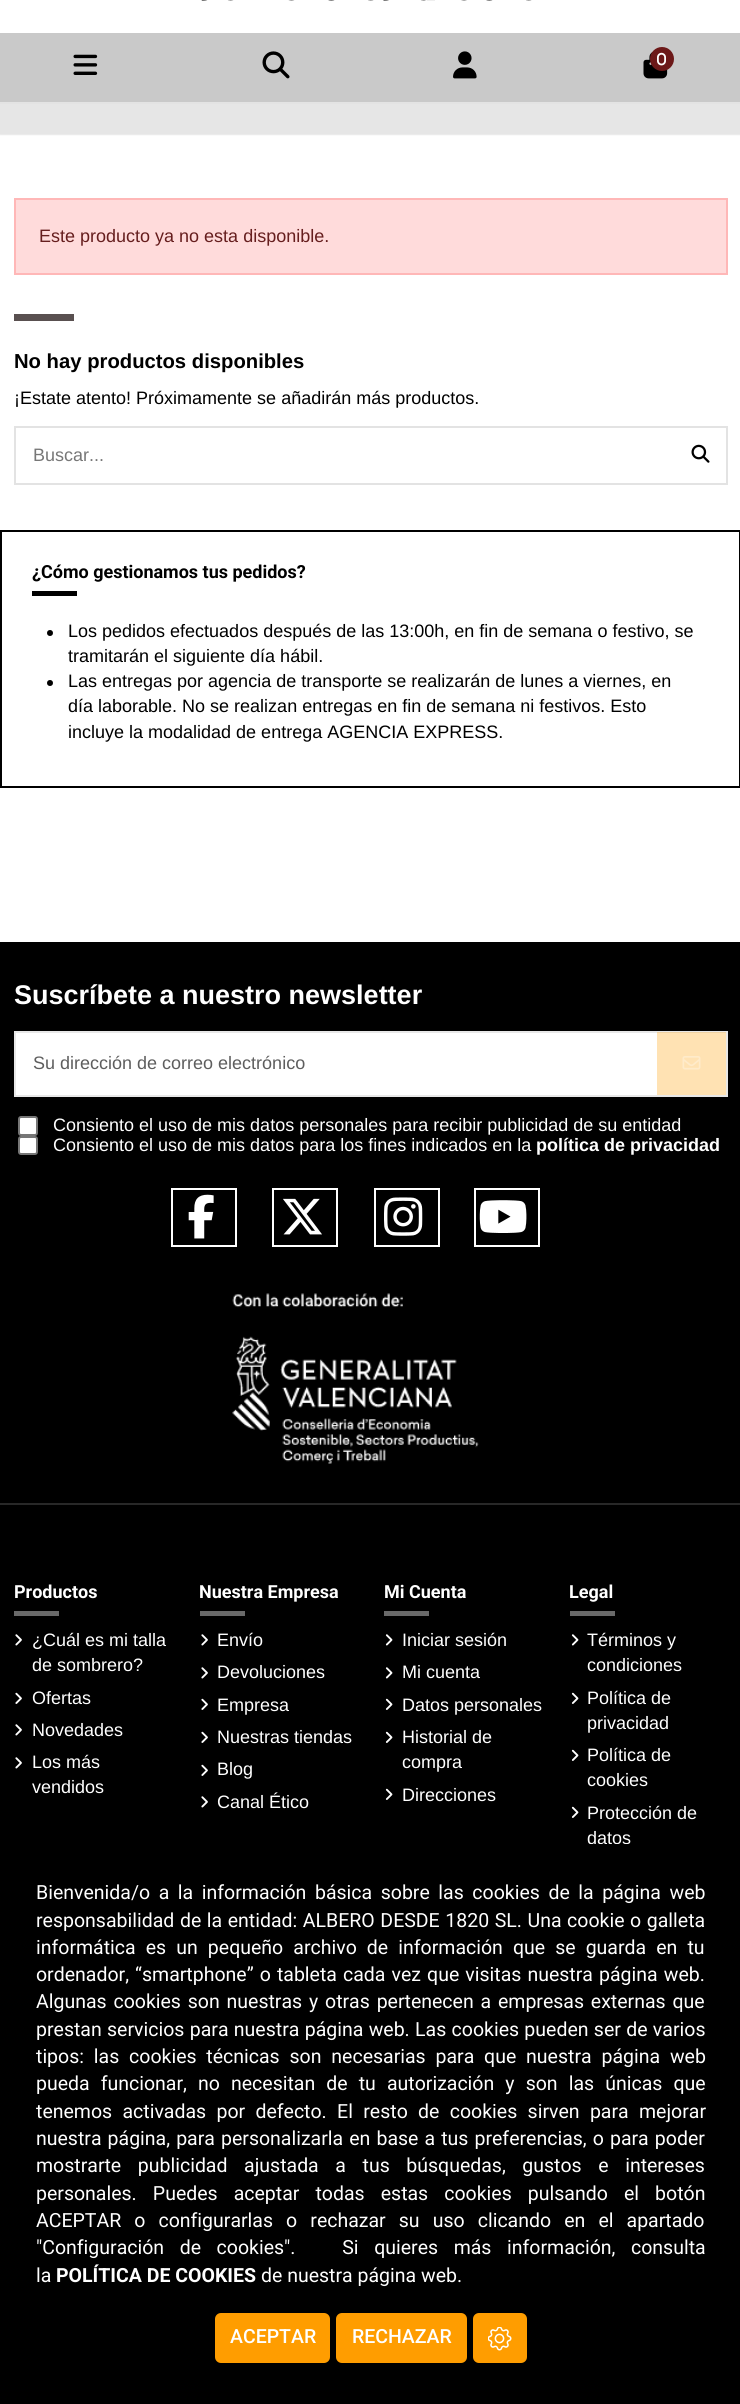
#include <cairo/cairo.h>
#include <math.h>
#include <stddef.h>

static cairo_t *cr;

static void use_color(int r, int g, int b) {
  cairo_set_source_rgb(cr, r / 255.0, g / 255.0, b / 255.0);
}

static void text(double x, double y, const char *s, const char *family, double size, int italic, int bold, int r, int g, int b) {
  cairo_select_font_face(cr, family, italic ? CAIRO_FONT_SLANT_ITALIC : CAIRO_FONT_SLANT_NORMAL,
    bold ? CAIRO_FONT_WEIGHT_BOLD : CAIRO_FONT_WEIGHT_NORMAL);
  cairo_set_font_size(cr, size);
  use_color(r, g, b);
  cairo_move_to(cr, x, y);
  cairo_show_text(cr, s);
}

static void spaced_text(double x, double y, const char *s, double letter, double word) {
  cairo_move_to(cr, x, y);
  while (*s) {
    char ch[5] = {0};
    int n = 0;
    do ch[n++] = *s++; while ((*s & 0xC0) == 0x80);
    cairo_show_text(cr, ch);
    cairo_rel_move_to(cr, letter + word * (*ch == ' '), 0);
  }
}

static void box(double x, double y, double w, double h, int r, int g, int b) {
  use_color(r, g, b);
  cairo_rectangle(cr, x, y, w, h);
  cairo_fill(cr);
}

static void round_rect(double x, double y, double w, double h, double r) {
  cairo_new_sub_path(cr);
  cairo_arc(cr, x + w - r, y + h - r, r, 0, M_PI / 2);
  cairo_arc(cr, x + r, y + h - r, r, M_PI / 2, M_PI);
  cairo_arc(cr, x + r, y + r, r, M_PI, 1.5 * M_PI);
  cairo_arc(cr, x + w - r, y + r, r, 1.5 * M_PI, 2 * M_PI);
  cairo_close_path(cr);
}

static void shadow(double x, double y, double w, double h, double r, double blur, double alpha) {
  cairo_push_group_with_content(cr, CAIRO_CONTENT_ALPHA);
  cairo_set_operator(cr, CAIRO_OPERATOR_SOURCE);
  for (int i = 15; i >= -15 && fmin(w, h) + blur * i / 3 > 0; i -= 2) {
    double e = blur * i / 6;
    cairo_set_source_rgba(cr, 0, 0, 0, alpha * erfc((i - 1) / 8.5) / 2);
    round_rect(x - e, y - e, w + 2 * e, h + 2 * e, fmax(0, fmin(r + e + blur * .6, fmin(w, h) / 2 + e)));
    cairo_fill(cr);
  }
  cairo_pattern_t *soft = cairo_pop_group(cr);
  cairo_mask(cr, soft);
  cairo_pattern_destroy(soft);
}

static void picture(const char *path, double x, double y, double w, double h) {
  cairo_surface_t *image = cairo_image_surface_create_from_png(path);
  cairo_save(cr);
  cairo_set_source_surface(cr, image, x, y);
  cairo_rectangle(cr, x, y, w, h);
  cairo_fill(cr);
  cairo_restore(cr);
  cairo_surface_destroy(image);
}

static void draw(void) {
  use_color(255, 255, 255);
  cairo_paint(cr);
  use_color(196, 196, 196);
  shadow(0, 104, 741, 30, 0, 1, 1);
  box(0, 102, 740, 2, 227, 227, 227);
  picture("img_01.png", 201, 0, 331, 1);
  box(0, 33, 740, 69, 201, 201, 201);
  picture("img_02.png", 73, 54, 25, 21);
  picture("img_03.png", 262, 51, 28, 28);
  picture("img_04.png", 453, 51, 24, 28);
  picture("img_06.png", 643, 51, 25, 28);
  use_color(108, 24, 24);
  cairo_arc(cr, 662, 59, 12, 0, 2 * M_PI);
  cairo_fill(cr);
  picture("img_05.png", 657, 52, 9, 14);
  box(0, 104, 740, 30, 230, 230, 230);
  use_color(255, 219, 219);
  cairo_rectangle(cr, 15, 199, 712, 75);
  cairo_fill_preserve(cr);
  use_color(255, 183, 183);
  cairo_stroke(cr);
  box(14, 314, 60, 7, 89, 80, 80);
  cairo_rectangle(cr, 15, 427, 712, 57);
  use_color(227, 227, 227);
  cairo_stroke(cr);
  picture("img_07.png", 691, 444, 19, 19);
  cairo_rectangle(cr, 1, 531, 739, 256);
  use_color(0, 0, 0);
  cairo_stroke(cr);
  box(32, 591, 45, 5, 0, 0, 0);
  cairo_arc(cr, 50, 633, 3, 0, 2 * M_PI);
  cairo_fill(cr);
  cairo_arc(cr, 50, 683, 3, 0, 2 * M_PI);
  cairo_fill(cr);
  box(0, 942, 740, 902, 0, 0, 0);
  use_color(255, 255, 255);
  cairo_rectangle(cr, 15, 1032, 712, 64);
  cairo_fill_preserve(cr);
  use_color(232, 232, 232);
  cairo_stroke(cr);
  cairo_set_source_rgba(cr, 1, 0.616, 0, 0.3);
  cairo_rectangle(cr, 657, 1032, 69, 63);
  cairo_fill(cr);
  picture("img_08.png", 682, 1056, 19, 14);
  use_color(255, 255, 255);
  round_rect(19, 1117, 18, 18, 2);
  cairo_fill_preserve(cr);
  use_color(118, 118, 118);
  cairo_stroke(cr);
  use_color(255, 255, 255);
  round_rect(19, 1137, 18, 17, 2);
  cairo_fill_preserve(cr);
  use_color(118, 118, 118);
  cairo_stroke(cr);
  cairo_rectangle(cr, 172, 1189, 64, 57);
  use_color(255, 255, 255);
  cairo_stroke(cr);
  picture("img_09.png", 188, 1194, 26, 45);
  cairo_rectangle(cr, 273, 1189, 64, 57);
  cairo_stroke(cr);
  picture("img_10.png", 283, 1198, 39, 37);
  cairo_rectangle(cr, 375, 1189, 64, 57);
  cairo_stroke(cr);
  picture("img_11.png", 384, 1197, 39, 39);
  cairo_rectangle(cr, 475, 1189, 64, 57);
  cairo_stroke(cr);
  picture("img_12.png", 479, 1200, 48, 33);
  picture("img_13.png", 232, 1293, 247, 171);
  box(0, 1503, 740, 2, 40, 40, 40);
  box(14, 1611, 45, 5, 105, 105, 105);
  picture("img_14.png", 15, 1634, 7, 12);
  picture("img_15.png", 15, 1692, 7, 12);
  picture("img_14.png", 15, 1724, 7, 12);
  picture("img_14.png", 15, 1757, 7, 12);
  box(200, 1611, 45, 5, 105, 105, 105);
  picture("img_14.png", 201, 1634, 7, 12);
  picture("img_14.png", 201, 1667, 7, 12);
  picture("img_15.png", 201, 1698, 7, 12);
  picture("img_15.png", 201, 1731, 7, 12);
  picture("img_15.png", 201, 1764, 7, 12);
  picture("img_14.png", 201, 1796, 7, 12);
  box(384, 1611, 45, 5, 105, 105, 105);
  picture("img_16.png", 385, 1634, 8, 12);
  picture("img_16.png", 385, 1667, 8, 12);
  picture("img_17.png", 385, 1698, 8, 12);
  picture("img_17.png", 385, 1731, 8, 12);
  picture("img_17.png", 385, 1788, 8, 12);
  box(570, 1611, 45, 5, 105, 105, 105);
  picture("img_16.png", 571, 1634, 8, 12);
  picture("img_17.png", 571, 1692, 8, 12);
  picture("img_17.png", 571, 1749, 8, 12);
  picture("img_17.png", 571, 1806, 8, 12);
  use_color(0, 0, 0);
  shadow(0, 1844, 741, 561, 0, 4, 0.5);
  text(39, 242, "Este producto ya no esta disponible.", "Liberation Sans", 18, 0, 0, 102, 30, 30);
  text(14, 368, "No hay productos disponibles", "Liberation Sans", 20.25, 0, 1, 0, 0, 0);
  text(14, 404, "¡Estate atento! Próximamente se añadirán más productos.", "Liberation Sans", 18, 0, 0, 0, 0, 0);
  text(33, 461, "Buscar...", "Liberation Sans", 18, 0, 0, 119, 119, 119);
  text(32, 578, "¿Cómo gestionamos tus pedidos?", "Roboto", 18, 0, 1, 0, 0, 0);
  text(68, 637, "Los pedidos efectuados después de las 13:00h, en fin de semana o festivo, se", "Liberation Sans", 18, 0, 0, 0, 0, 0);
  text(68, 662, "tramitarán el siguiente día hábil.", "Liberation Sans", 18, 0, 0, 0, 0, 0);
  text(68, 687, "Las entregas por agencia de transporte se realizarán de lunes a viernes, en", "Liberation Sans", 18, 0, 0, 0, 0, 0);
  text(68, 712, "día laborable. No se realizan entregas en fin de semana ni festivos. Esto", "Liberation Sans", 18, 0, 0, 0, 0, 0);
  text(68, 738, "incluye la modalidad de entrega AGENCIA EXPRESS.", "Liberation Sans", 18, 0, 0, 0, 0, 0);
  text(14, 1004, "Suscríbete a nuestro newsletter", "Liberation Sans", 27, 0, 1, 255, 255, 255);
  text(33, 1069, "Su dirección de correo electrónico", "Liberation Sans", 18, 0, 0, 94, 94, 94);
  text(53, 1131, "Consiento el uso de mis datos personales para recibir publicidad de su entidad", "Liberation Sans", 18, 0, 0, 255, 255, 255);
  text(53, 1151, "Consiento el uso de mis datos para los fines indicados en la", "Liberation Sans", 18, 0, 0, 255, 255, 255);
  text(536, 1151, "política de privacidad", "Liberation Sans", 18, 0, 1, 255, 255, 255);
  text(14, 1598, "Productos", "Roboto", 18, 0, 1, 255, 255, 255);
  text(32, 1646, "¿Cuál es mi talla", "Liberation Sans", 18, 0, 0, 255, 255, 255);
  text(32, 1671, "de sombrero?", "Liberation Sans", 18, 0, 0, 255, 255, 255);
  text(32, 1704, "Ofertas", "Liberation Sans", 18, 0, 0, 255, 255, 255);
  text(32, 1736, "Novedades", "Liberation Sans", 18, 0, 0, 255, 255, 255);
  text(32, 1768, "Los más", "Liberation Sans", 18, 0, 0, 255, 255, 255);
  text(32, 1793, "vendidos", "Liberation Sans", 18, 0, 0, 255, 255, 255);
  text(199, 1598, "Nuestra Empresa", "Roboto", 18, 0, 1, 255, 255, 255);
  text(217, 1646, "Envío", "Liberation Sans", 18, 0, 0, 255, 255, 255);
  text(217, 1678, "Devoluciones", "Liberation Sans", 18, 0, 0, 255, 255, 255);
  text(217, 1711, "Empresa", "Liberation Sans", 18, 0, 0, 255, 255, 255);
  text(217, 1743, "Nuestras tiendas", "Liberation Sans", 18, 0, 0, 255, 255, 255);
  text(217, 1775, "Blog", "Liberation Sans", 18, 0, 0, 255, 255, 255);
  text(217, 1808, "Canal Ético", "Liberation Sans", 18, 0, 0, 255, 255, 255);
  text(384, 1598, "Mi Cuenta", "Roboto", 18, 0, 1, 255, 255, 255);
  text(402, 1646, "Iniciar sesión", "Liberation Sans", 18, 0, 0, 255, 255, 255);
  text(402, 1678, "Mi cuenta", "Liberation Sans", 18, 0, 0, 255, 255, 255);
  text(402, 1711, "Datos personales", "Liberation Sans", 18, 0, 0, 255, 255, 255);
  text(402, 1743, "Historial de", "Liberation Sans", 18, 0, 0, 255, 255, 255);
  text(402, 1768, "compra", "Liberation Sans", 18, 0, 0, 255, 255, 255);
  text(402, 1801, "Direcciones", "Liberation Sans", 18, 0, 0, 255, 255, 255);
  text(569, 1598, "Legal", "Roboto", 18, 0, 1, 255, 255, 255);
  text(587, 1646, "Términos y", "Liberation Sans", 18, 0, 0, 255, 255, 255);
  text(587, 1671, "condiciones", "Liberation Sans", 18, 0, 0, 255, 255, 255);
  text(587, 1704, "Política de", "Liberation Sans", 18, 0, 0, 255, 255, 255);
  text(587, 1729, "privacidad", "Liberation Sans", 18, 0, 0, 255, 255, 255);
  text(587, 1761, "Política de", "Liberation Sans", 18, 0, 0, 255, 255, 255);
  text(587, 1786, "cookies", "Liberation Sans", 18, 0, 0, 255, 255, 255);
  text(587, 1819, "Protección de", "Liberation Sans", 18, 0, 0, 255, 255, 255);
  text(587, 1844, "datos", "Liberation Sans", 18, 0, 0, 255, 255, 255);
  box(0, 1844, 740, 560, 0, 0, 0);
  cairo_select_font_face(cr, "Roboto", CAIRO_FONT_SLANT_NORMAL, CAIRO_FONT_WEIGHT_NORMAL);
  cairo_set_font_size(cr, 19.5);
  use_color(255, 255, 255);
  spaced_text(36, 1899, "Bienvenida/o a la información básica sobre las cookies de la página web", 0, 3.75);
  spaced_text(36, 1927, "responsabilidad de la entidad: ALBERO DESDE 1820 SL. Una cookie o galleta", 0, 0.75);
  spaced_text(36, 1954, "informática es un pequeño archivo de información que se guarda en tu", 0, 5.25);
  spaced_text(36, 1981, "ordenador, “smartphone” o tableta cada vez que visitas nuestra página web.", 0, 1.25);
  spaced_text(36, 2008, "Algunas cookies son nuestras y otras pertenecen a empresas externas que", 0, 2);
  spaced_text(36, 2036, "prestan servicios para nuestra página web. Las cookies pueden ser de varios", 0, 0.5);
  spaced_text(36, 2063, "tipos: las cookies técnicas son necesarias para que nuestra página web", 0, 5);
  spaced_text(36, 2090, "pueda funcionar, no necesitan de tu autorización y son las únicas que", 0, 6.25);
  spaced_text(36, 2118, "tenemos activadas por defecto. El resto de cookies sirven para mejorar", 0, 5.5);
  spaced_text(36, 2145, "nuestra página, para personalizarla en base a tus preferencias, o para poder", 0, 1.25);
  spaced_text(36, 2172, "mostrarte publicidad ajustada a tus búsquedas, gustos e intereses", 0, 11.75);
  spaced_text(36, 2200, "personales. Puedes aceptar todas estas cookies pulsando el botón", 0, 11.25);
  spaced_text(36, 2227, "ACEPTAR o configurarlas o rechazar su uso clicando en el apartado", 0, 8.25);
  spaced_text(36, 2254, "\"Configuración de cookies\".   Si quieres más información, consulta", 0, 10.75);
  text(36, 2282, "la", "Roboto", 19.5, 0, 0, 255, 255, 255);
  text(56, 2282, "POLÍTICA DE COOKIES", "Roboto", 19.5, 0, 1, 255, 255, 255);
  text(261, 2282, "de nuestra página web.", "Roboto", 19.5, 0, 0, 255, 255, 255);
  use_color(255, 157, 0);
  round_rect(215, 2313, 115, 50, 6);
  cairo_fill(cr);
  text(230, 2343, "ACEPTAR", "Roboto Medium", 19.5, 0, 0, 255, 255, 255);
  use_color(255, 157, 0);
  round_rect(336, 2313, 131, 50, 6);
  cairo_fill(cr);
  text(352, 2343, "RECHAZAR", "Roboto Medium", 19.5, 0, 0, 255, 255, 255);
  use_color(255, 157, 0);
  round_rect(473, 2313, 54, 50, 6);
  cairo_fill(cr);
  picture("img_18.png", 488, 2327, 24, 24);
}

int main(void) {
  cairo_surface_t *surface = cairo_image_surface_create(CAIRO_FORMAT_RGB24, 740, 2404);
  cr = cairo_create(surface);
  cairo_font_options_t *options = cairo_font_options_create();
  cairo_font_options_set_hint_metrics(options, CAIRO_HINT_METRICS_OFF);
  cairo_font_options_set_hint_style(options, CAIRO_HINT_STYLE_NONE);
  cairo_set_font_options(cr, options);
  cairo_set_miter_limit(cr, 4);
  draw();
  cairo_surface_write_to_png(surface, "out.png");
  cairo_font_options_destroy(options);
  cairo_destroy(cr);
  cairo_surface_destroy(surface);
  return 0;
}
